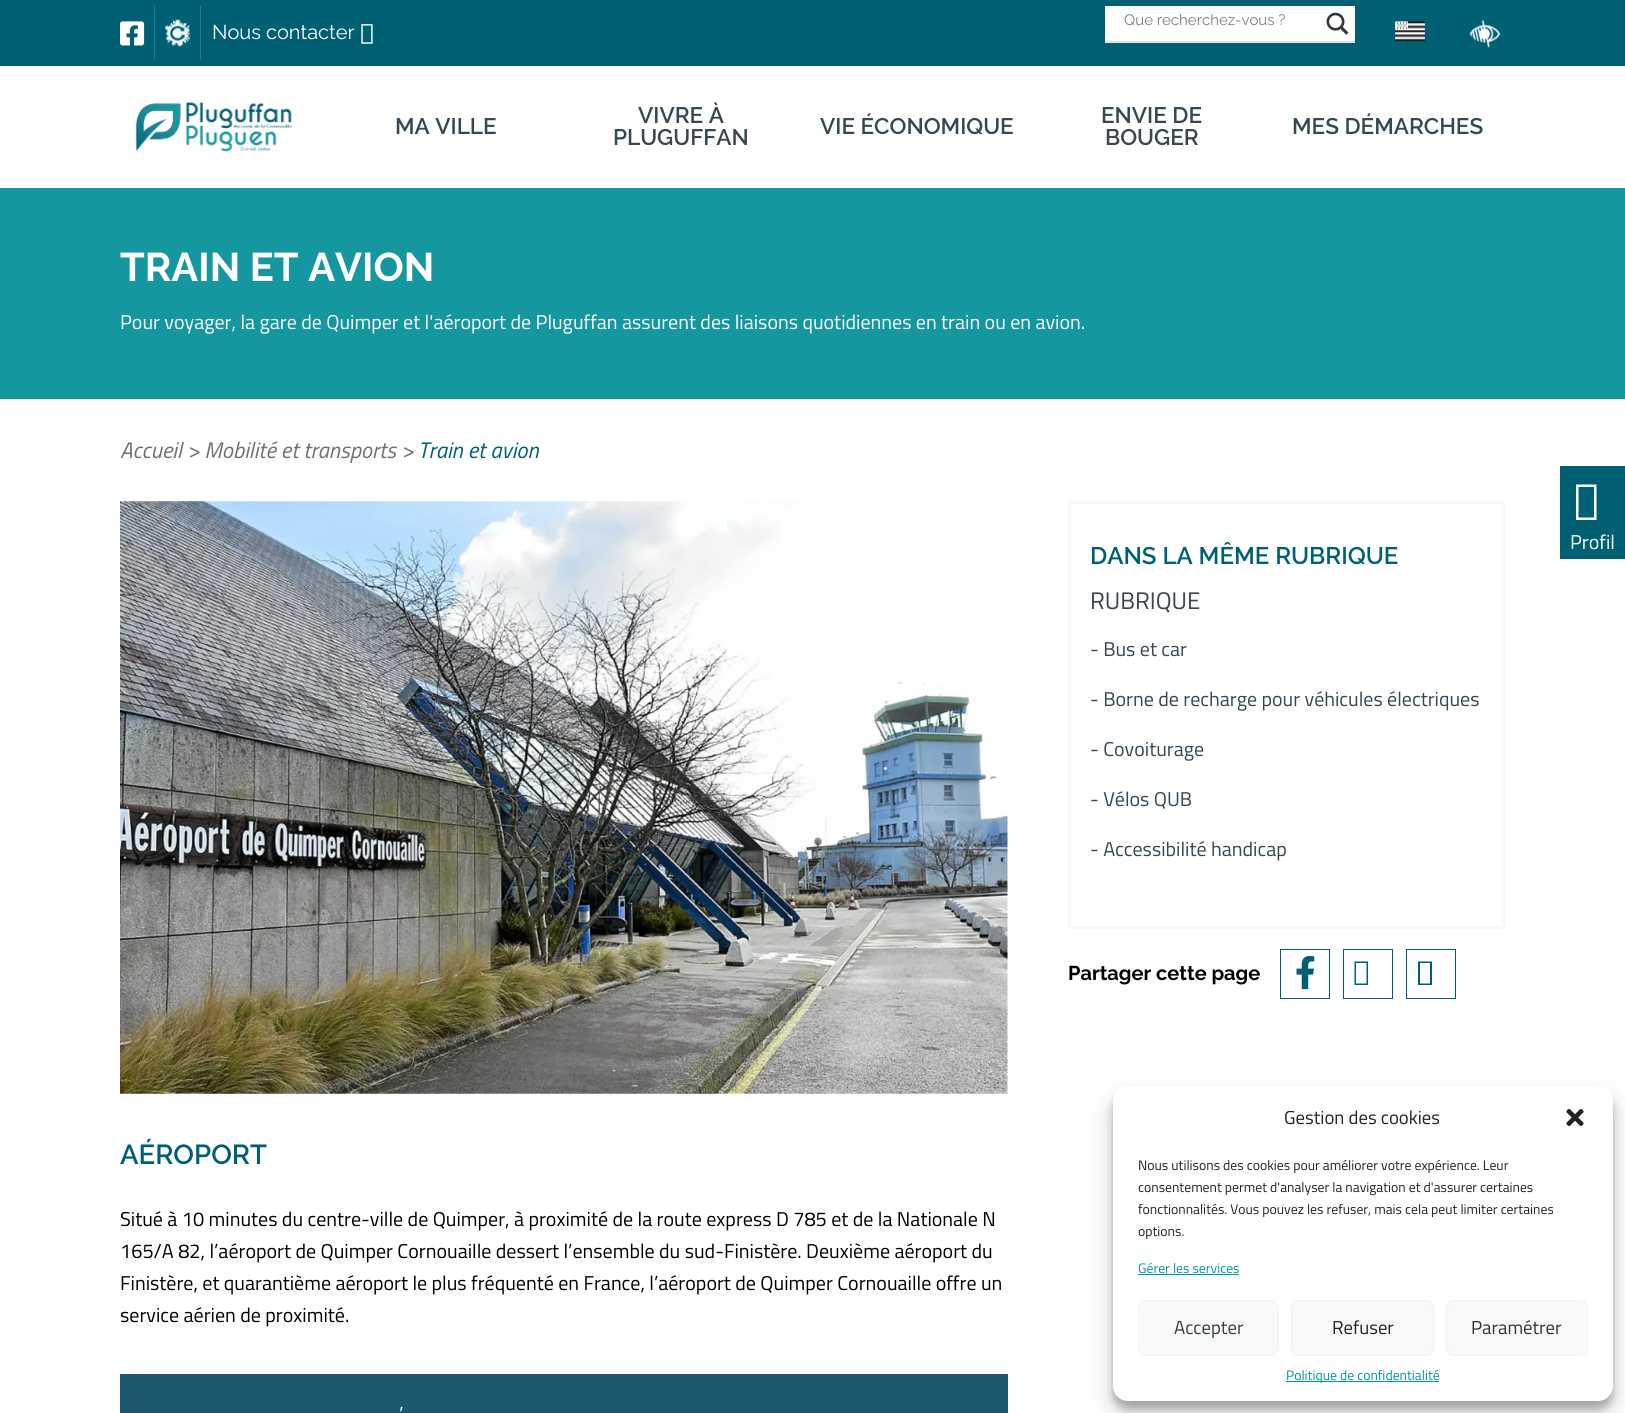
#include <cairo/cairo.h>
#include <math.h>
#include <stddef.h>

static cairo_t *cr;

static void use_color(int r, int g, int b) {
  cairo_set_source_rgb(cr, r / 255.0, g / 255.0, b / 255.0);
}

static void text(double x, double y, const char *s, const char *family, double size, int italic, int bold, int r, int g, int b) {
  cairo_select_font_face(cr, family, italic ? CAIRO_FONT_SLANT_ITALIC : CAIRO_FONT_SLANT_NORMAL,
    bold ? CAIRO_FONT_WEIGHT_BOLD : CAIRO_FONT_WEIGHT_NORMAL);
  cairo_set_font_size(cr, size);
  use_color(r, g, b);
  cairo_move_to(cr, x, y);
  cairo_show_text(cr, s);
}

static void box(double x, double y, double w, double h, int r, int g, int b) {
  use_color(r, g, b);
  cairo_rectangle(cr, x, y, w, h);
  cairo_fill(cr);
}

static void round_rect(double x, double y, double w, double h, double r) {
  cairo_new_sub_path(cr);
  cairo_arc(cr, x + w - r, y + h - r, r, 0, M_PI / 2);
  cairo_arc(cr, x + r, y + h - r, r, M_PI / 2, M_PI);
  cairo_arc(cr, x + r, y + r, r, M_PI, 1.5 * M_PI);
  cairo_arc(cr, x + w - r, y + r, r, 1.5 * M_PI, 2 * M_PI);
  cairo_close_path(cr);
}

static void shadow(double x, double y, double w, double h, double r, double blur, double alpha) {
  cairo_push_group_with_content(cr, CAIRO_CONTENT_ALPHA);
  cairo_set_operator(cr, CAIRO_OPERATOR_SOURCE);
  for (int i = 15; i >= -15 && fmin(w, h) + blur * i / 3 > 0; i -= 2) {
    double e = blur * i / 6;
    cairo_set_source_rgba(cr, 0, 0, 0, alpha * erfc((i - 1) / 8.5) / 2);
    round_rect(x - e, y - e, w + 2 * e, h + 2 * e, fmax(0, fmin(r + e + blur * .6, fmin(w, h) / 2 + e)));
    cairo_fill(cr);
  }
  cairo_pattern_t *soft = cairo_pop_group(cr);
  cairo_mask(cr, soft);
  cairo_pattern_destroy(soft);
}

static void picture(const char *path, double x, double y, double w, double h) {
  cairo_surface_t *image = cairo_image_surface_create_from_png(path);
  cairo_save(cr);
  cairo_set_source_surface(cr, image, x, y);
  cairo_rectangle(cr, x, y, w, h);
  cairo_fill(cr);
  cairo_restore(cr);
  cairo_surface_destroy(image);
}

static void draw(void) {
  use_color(255, 255, 255);
  cairo_paint(cr);
  box(0, 0, 1625, 66, 0, 96, 115);
  box(1105, 41, 250, 2, 228, 228, 228);
  box(1105, 6, 250, 35, 255, 255, 255);
  picture("img_01.png", 1326, 12, 23, 23);
  picture("img_02.png", 1395, 21, 30, 21);
  picture("img_03.png", 1469, 20, 32, 28);
  picture("img_04.png", 120, 21, 25, 25);
  box(154, 6, 1, 54, 32, 124, 143);
  picture("img_05.png", 165, 19, 25, 28);
  box(200, 6, 1, 54, 32, 124, 143);
  picture("img_06.png", 361, 24, 12, 20);
  picture("img_07.png", 135, 102, 158, 50);
  box(0, 188, 1625, 211, 21, 151, 160);
  cairo_rectangle(cr, 1069.5, 502.5, 434, 425);
  use_color(243, 249, 251);
  cairo_set_line_width(cr, 3);
  cairo_stroke(cr);
  cairo_rectangle(cr, 1280.5, 949.5, 49, 49);
  use_color(0, 96, 115);
  cairo_set_line_width(cr, 1);
  cairo_stroke(cr);
  picture("img_08.png", 1296, 955, 19, 35);
  cairo_rectangle(cr, 1343.5, 949.5, 49, 49);
  cairo_stroke(cr);
  cairo_new_path(cr);
  cairo_move_to(cr, 1354.5, 985);
  cairo_line_to(cr, 1354.5, 961.5);
  cairo_line_to(cr, 1368, 961.5);
  cairo_line_to(cr, 1368, 985);
  cairo_close_path(cr);
  cairo_move_to(cr, 1356, 983.5);
  cairo_line_to(cr, 1366.5, 983.5);
  cairo_line_to(cr, 1366.5, 963);
  cairo_line_to(cr, 1356, 963);
  cairo_close_path(cr);
  cairo_fill(cr);
  cairo_rectangle(cr, 1406.5, 949.5, 49, 49);
  cairo_stroke(cr);
  cairo_new_path(cr);
  cairo_move_to(cr, 1418, 985);
  cairo_line_to(cr, 1418, 961.5);
  cairo_line_to(cr, 1432, 961.5);
  cairo_line_to(cr, 1432, 985);
  cairo_close_path(cr);
  cairo_move_to(cr, 1420, 983.5);
  cairo_line_to(cr, 1430, 983.5);
  cairo_line_to(cr, 1430, 963);
  cairo_line_to(cr, 1420, 963);
  cairo_close_path(cr);
  cairo_fill(cr);
  box(1560, 466, 65, 93, 0, 96, 115);
  use_color(255, 255, 255);
  cairo_new_path(cr);
  cairo_move_to(cr, 1576, 520);
  cairo_line_to(cr, 1576, 484.5);
  cairo_line_to(cr, 1596.5, 484.5);
  cairo_line_to(cr, 1596.5, 520);
  cairo_close_path(cr);
  cairo_move_to(cr, 1578.5, 517.5);
  cairo_line_to(cr, 1594, 517.5);
  cairo_line_to(cr, 1594, 487);
  cairo_line_to(cr, 1578.5, 487);
  cairo_close_path(cr);
  cairo_fill(cr);
  picture("img_09.png", 120, 501, 888, 593);
  box(120, 1374, 888, 39, 28, 89, 112);
  use_color(0, 0, 0);
  shadow(1113, 1094, 500, 315, 15, 4, 0.23);
  shadow(1113, 1099, 500, 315, 15, 12.5, 0.19);
  use_color(255, 255, 255);
  round_rect(1113, 1086, 500, 315, 15);
  cairo_fill(cr);
  picture("img_10.png", 1566, 1108, 18, 18);
  box(1138, 1274, 101, 1, 0, 151, 159);
  use_color(249, 249, 249);
  round_rect(1138.5, 1300.5, 140, 55, 7.5);
  cairo_fill_preserve(cr);
  use_color(242, 242, 242);
  cairo_stroke(cr);
  use_color(249, 249, 249);
  round_rect(1291.5, 1300.5, 142, 55, 7.5);
  cairo_fill_preserve(cr);
  use_color(242, 242, 242);
  cairo_stroke(cr);
  use_color(249, 249, 249);
  round_rect(1446.5, 1300.5, 141, 55, 7.5);
  cairo_fill_preserve(cr);
  use_color(242, 242, 242);
  cairo_stroke(cr);
  box(1286, 1381, 153, 1, 0, 151, 159);
  text(1124, 25, "Que recherchez-vous ?", "Raleway", 15, 0, 0, 125, 125, 125);
  text(212, 39, "Nous contacter", "Raleway", 20, 0, 0, 255, 255, 255);
  text(395, 134, "MA VILLE", "Raleway SemiBold", 22.5, 0, 0, 53, 71, 82);
  text(638, 123, "VIVRE À", "Raleway SemiBold", 22.5, 0, 0, 53, 71, 82);
  text(613, 145, "PLUGUFFAN", "Raleway SemiBold", 22.5, 0, 0, 53, 71, 82);
  text(820, 134, "VIE ÉCONOMIQUE", "Raleway SemiBold", 22.5, 0, 0, 53, 71, 82);
  text(1101, 123, "ENVIE DE", "Raleway SemiBold", 22.5, 0, 0, 53, 71, 82);
  text(1105, 145, "BOUGER", "Raleway SemiBold", 22.5, 0, 0, 53, 71, 82);
  text(1292, 134, "MES DÉMARCHES", "Raleway SemiBold", 22.5, 0, 0, 53, 71, 82);
  text(120, 281, "TRAIN ET AVION", "Raleway", 40, 0, 1, 255, 255, 255);
  text(120, 329, "Pour voyager, la gare de Quimper et l'aéroport de Pluguffan assurent des liaisons quotidiennes en train ou en avion.", "Titillium Web", 20, 0, 0, 255, 255, 255);
  text(120, 458, "Accueil > Mobilité et transports >", "Titillium Web", 22.5, 1, 0, 112, 112, 112);
  text(418, 458, "Train et avion", "Titillium Web", 22.5, 1, 0, 0, 96, 115);
  text(1090, 564, "DANS LA MÊME RUBRIQUE", "Raleway SemiBold", 24, 0, 0, 0, 96, 115);
  text(1090, 609, "RUBRIQUE", "Titillium Web", 24, 0, 0, 53, 71, 82);
  text(1090, 656, "- Bus et car", "Titillium Web", 20, 0, 0, 53, 71, 82);
  text(1090, 706, "- Borne de recharge pour véhicules électriques", "Titillium Web", 20, 0, 0, 53, 71, 82);
  text(1090, 756, "- Covoiturage", "Titillium Web", 20, 0, 0, 53, 71, 82);
  text(1090, 806, "- Vélos QUB", "Titillium Web", 20, 0, 0, 53, 71, 82);
  text(1090, 856, "- Accessibilité handicap", "Titillium Web", 20, 0, 0, 53, 71, 82);
  text(1068, 980, "Partager cette page", "Raleway", 20, 0, 1, 0, 0, 0);
  text(1570, 549, "Profil", "Titillium Web", 20, 0, 0, 255, 255, 255);
  text(120, 1164, "AÉROPORT", "Raleway SemiBold", 27.5, 0, 0, 0, 96, 115);
  text(120, 1226, "Situé à 10 minutes du centre-ville de Quimper, à proximité de la route express D 785 et de la Nationale N", "Titillium Web", 20, 0, 0, 0, 0, 0);
  text(120, 1258, "165/A 82, l’aéroport de Quimper Cornouaille dessert l’ensemble du sud-Finistère. Deuxième aéroport du", "Titillium Web", 20, 0, 0, 0, 0, 0);
  text(120, 1290, "Finistère, et quarantième aéroport le plus fréquenté en France, l’aéroport de Quimper Cornouaille offre un", "Titillium Web", 20, 0, 0, 0, 0, 0);
  text(120, 1322, "service aérien de proximité.", "Titillium Web", 20, 0, 0, 0, 0, 0);
  text(399, 1421, "’", "Titillium Web", 20, 0, 0, 255, 255, 255);
  text(1284, 1124, "Gestion des cookies", "Titillium Web", 18.75, 0, 0, 34, 34, 34);
  text(1138, 1170, "Nous utilisons des cookies pour améliorer votre expérience. Leur", "Titillium Web", 13.75, 0, 0, 34, 34, 34);
  text(1138, 1192, "consentement permet d'analyser la navigation et d'assurer certaines", "Titillium Web", 13.75, 0, 0, 34, 34, 34);
  text(1138, 1214, "fonctionnalités. Vous pouvez les refuser, mais cela peut limiter certaines", "Titillium Web", 13.75, 0, 0, 34, 34, 34);
  text(1138, 1236, "options.", "Titillium Web", 13.75, 0, 0, 34, 34, 34);
  text(1138, 1273, "Gérer les services", "Titillium Web", 13.75, 0, 0, 0, 151, 159);
  text(1174, 1334, "Accepter", "Titillium Web", 18.75, 0, 0, 50, 62, 72);
  text(1332, 1334, "Refuser", "Titillium Web", 18.75, 0, 0, 34, 34, 34);
  text(1471, 1334, "Paramétrer", "Titillium Web", 18.75, 0, 0, 51, 51, 51);
  text(1286, 1380, "Politique de confidentialité", "Titillium Web", 13.75, 0, 0, 0, 151, 159);
}

int main(void) {
  cairo_surface_t *surface = cairo_image_surface_create(CAIRO_FORMAT_RGB24, 1625, 1413);
  cr = cairo_create(surface);
  cairo_font_options_t *options = cairo_font_options_create();
  cairo_font_options_set_hint_metrics(options, CAIRO_HINT_METRICS_OFF);
  cairo_font_options_set_hint_style(options, CAIRO_HINT_STYLE_NONE);
  cairo_set_font_options(cr, options);
  cairo_set_miter_limit(cr, 4);
  draw();
  cairo_surface_write_to_png(surface, "out.png");
  cairo_font_options_destroy(options);
  cairo_destroy(cr);
  cairo_surface_destroy(surface);
  return 0;
}
